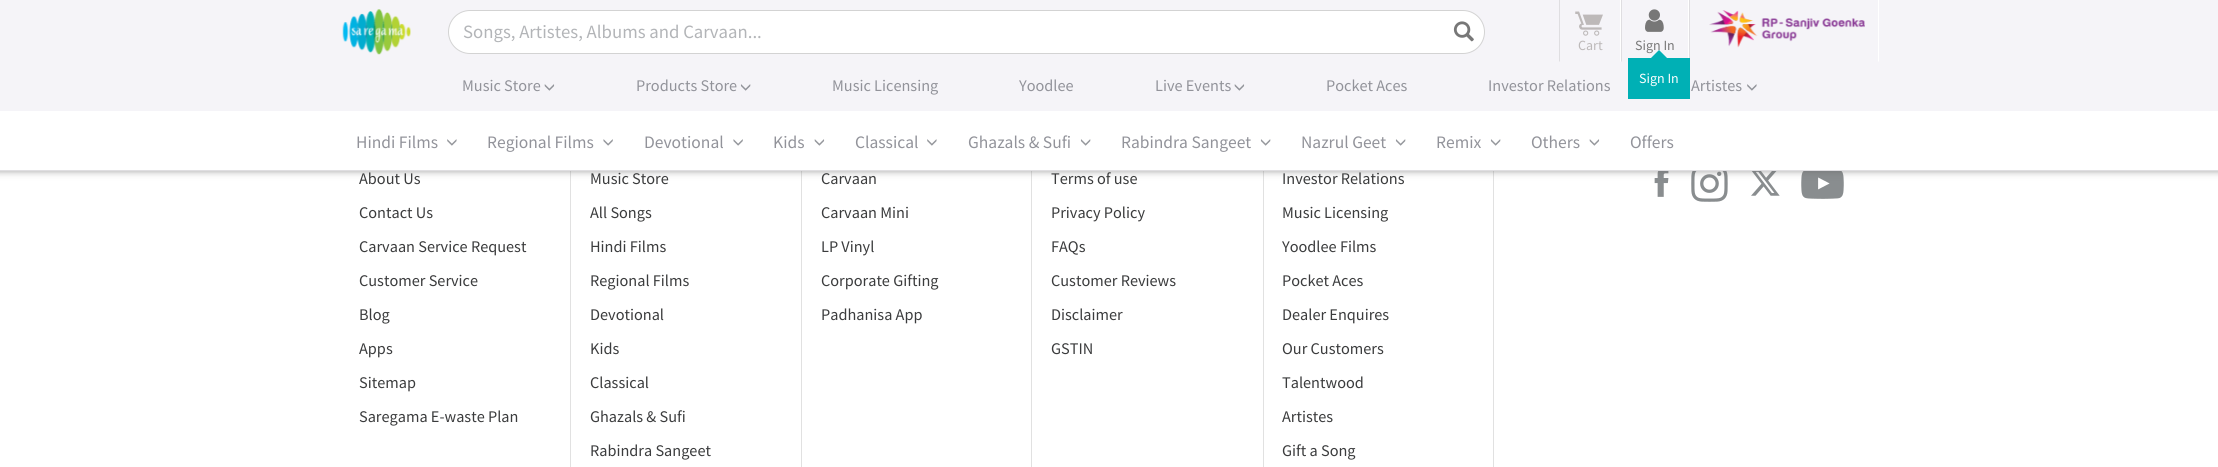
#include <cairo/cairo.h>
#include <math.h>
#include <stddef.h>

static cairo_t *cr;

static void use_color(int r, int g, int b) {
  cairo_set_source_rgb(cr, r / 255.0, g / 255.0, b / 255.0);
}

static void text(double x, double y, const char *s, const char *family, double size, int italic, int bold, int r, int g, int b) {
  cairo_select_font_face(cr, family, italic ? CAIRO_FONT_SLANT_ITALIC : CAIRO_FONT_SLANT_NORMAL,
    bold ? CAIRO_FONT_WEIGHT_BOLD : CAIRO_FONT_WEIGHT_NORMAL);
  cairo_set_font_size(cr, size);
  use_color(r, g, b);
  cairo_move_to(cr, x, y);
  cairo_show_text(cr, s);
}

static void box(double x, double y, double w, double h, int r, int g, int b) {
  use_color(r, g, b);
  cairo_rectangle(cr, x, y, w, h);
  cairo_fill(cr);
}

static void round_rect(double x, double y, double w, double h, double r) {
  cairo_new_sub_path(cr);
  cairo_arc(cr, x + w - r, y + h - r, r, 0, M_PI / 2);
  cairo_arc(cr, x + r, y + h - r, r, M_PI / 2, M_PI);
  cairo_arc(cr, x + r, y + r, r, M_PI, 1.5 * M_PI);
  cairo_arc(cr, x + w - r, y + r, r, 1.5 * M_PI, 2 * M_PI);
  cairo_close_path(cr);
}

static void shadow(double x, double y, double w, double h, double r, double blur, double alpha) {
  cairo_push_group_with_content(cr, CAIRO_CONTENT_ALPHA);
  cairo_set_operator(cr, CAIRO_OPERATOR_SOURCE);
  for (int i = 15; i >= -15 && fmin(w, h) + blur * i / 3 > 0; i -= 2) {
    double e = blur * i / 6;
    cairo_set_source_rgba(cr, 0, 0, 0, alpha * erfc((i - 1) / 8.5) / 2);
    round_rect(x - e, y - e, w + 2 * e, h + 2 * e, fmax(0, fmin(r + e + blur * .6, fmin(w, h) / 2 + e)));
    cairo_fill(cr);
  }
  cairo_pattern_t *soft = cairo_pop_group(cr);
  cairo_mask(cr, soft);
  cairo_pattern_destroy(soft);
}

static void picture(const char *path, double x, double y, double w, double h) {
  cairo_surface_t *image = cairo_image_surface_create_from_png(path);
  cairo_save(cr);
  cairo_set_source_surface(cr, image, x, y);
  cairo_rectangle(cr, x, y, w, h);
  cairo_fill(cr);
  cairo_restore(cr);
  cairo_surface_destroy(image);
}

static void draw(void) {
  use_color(255, 255, 255);
  cairo_paint(cr);
  box(570, 171, 1, 296, 225, 225, 225);
  box(801, 171, 1, 296, 225, 225, 225);
  box(1031, 171, 1, 296, 225, 225, 225);
  box(1263, 171, 1, 296, 225, 225, 225);
  box(1493, 171, 1, 296, 225, 225, 225);
  picture("img_13.png", 1654, 171, 15, 26);
  picture("img_14.png", 1691, 171, 37, 31);
  picture("img_15.png", 1751, 171, 29, 25);
  picture("img_16.png", 1801, 171, 43, 28);
  use_color(102, 102, 102);
  shadow(-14, -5, 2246, 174, 0, 4.5, 1);
  box(0, 0, 2218, 111, 245, 244, 248);
  picture("img_01.png", 342, 9, 69, 46);
  use_color(255, 255, 255);
  round_rect(448.5, 10.5, 1036, 43, 21.5);
  cairo_fill_preserve(cr);
  use_color(211, 211, 211);
  cairo_set_line_width(cr, 1);
  cairo_stroke(cr);
  picture("img_02.png", 1453, 21, 21, 21);
  use_color(255, 255, 255);
  cairo_new_path(cr);
  cairo_move_to(cr, 1621, 0);
  cairo_line_to(cr, 1621, 62);
  cairo_line_to(cr, 1620, 61);
  cairo_line_to(cr, 1620, 0);
  cairo_close_path(cr);
  cairo_fill(cr);
  use_color(223, 222, 225);
  cairo_new_path(cr);
  cairo_move_to(cr, 1559, 62);
  cairo_line_to(cr, 1559, 0);
  cairo_line_to(cr, 1560, 0);
  cairo_line_to(cr, 1560, 61);
  cairo_close_path(cr);
  cairo_fill(cr);
  picture("img_03.png", 1575, 11, 28, 25);
  use_color(255, 255, 255);
  cairo_new_path(cr);
  cairo_move_to(cr, 1689, 0);
  cairo_line_to(cr, 1689, 62);
  cairo_line_to(cr, 1688, 61);
  cairo_line_to(cr, 1688, 0);
  cairo_close_path(cr);
  cairo_fill(cr);
  use_color(223, 222, 225);
  cairo_new_path(cr);
  cairo_move_to(cr, 1621, 62);
  cairo_line_to(cr, 1621, 0);
  cairo_line_to(cr, 1622, 0);
  cairo_line_to(cr, 1622, 61);
  cairo_close_path(cr);
  cairo_fill(cr);
  picture("img_04.png", 1645, 9, 19, 23);
  cairo_new_path(cr);
  cairo_move_to(cr, 1689, 62);
  cairo_line_to(cr, 1689, 0);
  cairo_line_to(cr, 1690, 0);
  cairo_line_to(cr, 1690, 61);
  cairo_close_path(cr);
  cairo_fill(cr);
  box(1628, 58, 62, 41, 0, 176, 181);
  use_color(255, 255, 255);
  cairo_new_path(cr);
  cairo_move_to(cr, 1879, 0);
  cairo_line_to(cr, 1879, 62);
  cairo_line_to(cr, 1878, 61);
  cairo_line_to(cr, 1878, 0);
  cairo_close_path(cr);
  cairo_fill(cr);
  picture("img_05.png", 1709, 10, 156, 38);
  picture("img_06.png", 544, 84, 11, 7);
  picture("img_07.png", 740, 84, 11, 7);
  picture("img_06.png", 1234, 84, 11, 7);
  picture("img_08.png", 1747, 84, 10, 7);
  box(0, 111, 2218, 59, 255, 255, 255);
  box(0, 170, 2218, 1, 223, 222, 225);
  picture("img_09.png", 447, 139, 10, 7);
  picture("img_10.png", 603, 139, 10, 7);
  picture("img_10.png", 733, 139, 10, 7);
  picture("img_11.png", 814, 139, 11, 7);
  picture("img_09.png", 927, 139, 10, 7);
  picture("img_12.png", 1080, 139, 11, 7);
  picture("img_12.png", 1260, 139, 11, 7);
  picture("img_12.png", 1395, 139, 11, 7);
  picture("img_12.png", 1490, 139, 11, 7);
  picture("img_11.png", 1589, 139, 11, 7);
  text(463, 38, "Songs, Artistes, Albums and Carvaan...", "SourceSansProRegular", 18.75, 0, 0, 179, 181, 184);
  text(1578, 50, "Cart", "SourceSansProRegular", 14, 0, 0, 189, 185, 185);
  text(1635, 50, "Sign In", "SourceSansProRegular", 14, 0, 0, 119, 119, 119);
  use_color(0, 176, 181);
  cairo_new_path(cr);
  cairo_move_to(cr, 1659, 50);
  cairo_line_to(cr, 1668, 59);
  cairo_line_to(cr, 1659, 67.5);
  cairo_line_to(cr, 1650, 59);
  cairo_close_path(cr);
  cairo_fill(cr);
  text(1639, 83, "Sign In", "SourceSansProRegular", 14, 0, 0, 255, 255, 255);
  text(462, 91, "Music Store", "SourceSansProRegular", 16.25, 0, 0, 146, 147, 154);
  text(636, 91, "Products Store", "SourceSansProRegular", 16.25, 0, 0, 146, 147, 154);
  text(832, 91, "Music Licensing", "SourceSansProRegular", 16.25, 0, 0, 146, 147, 154);
  text(1019, 91, "Yoodlee", "SourceSansProRegular", 16.25, 0, 0, 146, 147, 154);
  text(1155, 91, "Live Events", "SourceSansProRegular", 16.25, 0, 0, 146, 147, 154);
  text(1326, 91, "Pocket Aces", "SourceSansProRegular", 16.25, 0, 0, 146, 147, 154);
  text(1488, 91, "Investor Relations", "SourceSansProRegular", 16.25, 0, 0, 146, 147, 154);
  text(1691, 91, "Artistes", "SourceSansProRegular", 16.25, 0, 0, 146, 147, 154);
  text(356, 148, "Hindi Films", "SourceSansProRegular", 17.5, 0, 0, 146, 147, 154);
  text(487, 148, "Regional Films", "SourceSansProRegular", 17.5, 0, 0, 146, 147, 154);
  text(644, 148, "Devotional", "SourceSansProRegular", 17.5, 0, 0, 146, 147, 154);
  text(773, 148, "Kids", "SourceSansProRegular", 17.5, 0, 0, 146, 147, 154);
  text(855, 148, "Classical", "SourceSansProRegular", 17.5, 0, 0, 146, 147, 154);
  text(968, 148, "Ghazals & Sufi", "SourceSansProRegular", 17.5, 0, 0, 146, 147, 154);
  text(1121, 148, "Rabindra Sangeet", "SourceSansProRegular", 17.5, 0, 0, 146, 147, 154);
  text(1301, 148, "Nazrul Geet", "SourceSansProRegular", 17.5, 0, 0, 146, 147, 154);
  text(1436, 148, "Remix", "SourceSansProRegular", 17.5, 0, 0, 146, 147, 154);
  text(1531, 148, "Others", "SourceSansProRegular", 17.5, 0, 0, 146, 147, 154);
  text(1630, 148, "Offers", "SourceSansProRegular", 17.5, 0, 0, 146, 147, 154);
  text(359, 184, "About Us", "SourceSansProRegular", 16.25, 0, 0, 59, 60, 61);
  text(359, 218, "Contact Us", "SourceSansProRegular", 16.25, 0, 0, 59, 60, 61);
  text(359, 252, "Carvaan Service Request", "SourceSansProRegular", 16.25, 0, 0, 59, 60, 61);
  text(359, 286, "Customer Service", "SourceSansProRegular", 16.25, 0, 0, 59, 60, 61);
  text(359, 320, "Blog", "SourceSansProRegular", 16.25, 0, 0, 59, 60, 61);
  text(359, 354, "Apps", "SourceSansProRegular", 16.25, 0, 0, 59, 60, 61);
  text(359, 388, "Sitemap", "SourceSansProRegular", 16.25, 0, 0, 59, 60, 61);
  text(359, 422, "Saregama E-waste Plan", "SourceSansProRegular", 16.25, 0, 0, 59, 60, 61);
  text(590, 184, "Music Store", "SourceSansProRegular", 16.25, 0, 0, 59, 60, 61);
  text(590, 218, "All Songs", "SourceSansProRegular", 16.25, 0, 0, 59, 60, 61);
  text(590, 252, "Hindi Films", "SourceSansProRegular", 16.25, 0, 0, 59, 60, 61);
  text(590, 286, "Regional Films", "SourceSansProRegular", 16.25, 0, 0, 59, 60, 61);
  text(590, 320, "Devotional", "SourceSansProRegular", 16.25, 0, 0, 59, 60, 61);
  text(590, 354, "Kids", "SourceSansProRegular", 16.25, 0, 0, 59, 60, 61);
  text(590, 388, "Classical", "SourceSansProRegular", 16.25, 0, 0, 59, 60, 61);
  text(590, 422, "Ghazals & Sufi", "SourceSansProRegular", 16.25, 0, 0, 59, 60, 61);
  text(590, 456, "Rabindra Sangeet", "SourceSansProRegular", 16.25, 0, 0, 59, 60, 61);
  text(821, 184, "Carvaan", "SourceSansProRegular", 16.25, 0, 0, 59, 60, 61);
  text(821, 218, "Carvaan Mini", "SourceSansProRegular", 16.25, 0, 0, 59, 60, 61);
  text(821, 252, "LP Vinyl", "SourceSansProRegular", 16.25, 0, 0, 59, 60, 61);
  text(821, 286, "Corporate Gifting", "SourceSansProRegular", 16.25, 0, 0, 59, 60, 61);
  text(821, 320, "Padhanisa App", "SourceSansProRegular", 16.25, 0, 0, 59, 60, 61);
  text(1051, 184, "Terms of use", "SourceSansProRegular", 16.25, 0, 0, 59, 60, 61);
  text(1051, 218, "Privacy Policy", "SourceSansProRegular", 16.25, 0, 0, 59, 60, 61);
  text(1051, 252, "FAQs", "SourceSansProRegular", 16.25, 0, 0, 59, 60, 61);
  text(1051, 286, "Customer Reviews", "SourceSansProRegular", 16.25, 0, 0, 59, 60, 61);
  text(1051, 320, "Disclaimer", "SourceSansProRegular", 16.25, 0, 0, 59, 60, 61);
  text(1051, 354, "GSTIN", "SourceSansProRegular", 16.25, 0, 0, 59, 60, 61);
  text(1282, 184, "Investor Relations", "SourceSansProRegular", 16.25, 0, 0, 59, 60, 61);
  text(1282, 218, "Music Licensing", "SourceSansProRegular", 16.25, 0, 0, 59, 60, 61);
  text(1282, 252, "Yoodlee Films", "SourceSansProRegular", 16.25, 0, 0, 59, 60, 61);
  text(1282, 286, "Pocket Aces", "SourceSansProRegular", 16.25, 0, 0, 59, 60, 61);
  text(1282, 320, "Dealer Enquires", "SourceSansProRegular", 16.25, 0, 0, 59, 60, 61);
  text(1282, 354, "Our Customers", "SourceSansProRegular", 16.25, 0, 0, 59, 60, 61);
  text(1282, 388, "Talentwood", "SourceSansProRegular", 16.25, 0, 0, 59, 60, 61);
  text(1282, 422, "Artistes", "SourceSansProRegular", 16.25, 0, 0, 59, 60, 61);
  text(1282, 456, "Gift a Song", "SourceSansProRegular", 16.25, 0, 0, 59, 60, 61);
}

int main(void) {
  cairo_surface_t *surface = cairo_image_surface_create(CAIRO_FORMAT_RGB24, 2218, 467);
  cr = cairo_create(surface);
  cairo_font_options_t *options = cairo_font_options_create();
  cairo_font_options_set_hint_metrics(options, CAIRO_HINT_METRICS_OFF);
  cairo_font_options_set_hint_style(options, CAIRO_HINT_STYLE_NONE);
  cairo_set_font_options(cr, options);
  cairo_set_miter_limit(cr, 4);
  draw();
  cairo_surface_write_to_png(surface, "out.png");
  cairo_font_options_destroy(options);
  cairo_destroy(cr);
  cairo_surface_destroy(surface);
  return 0;
}
